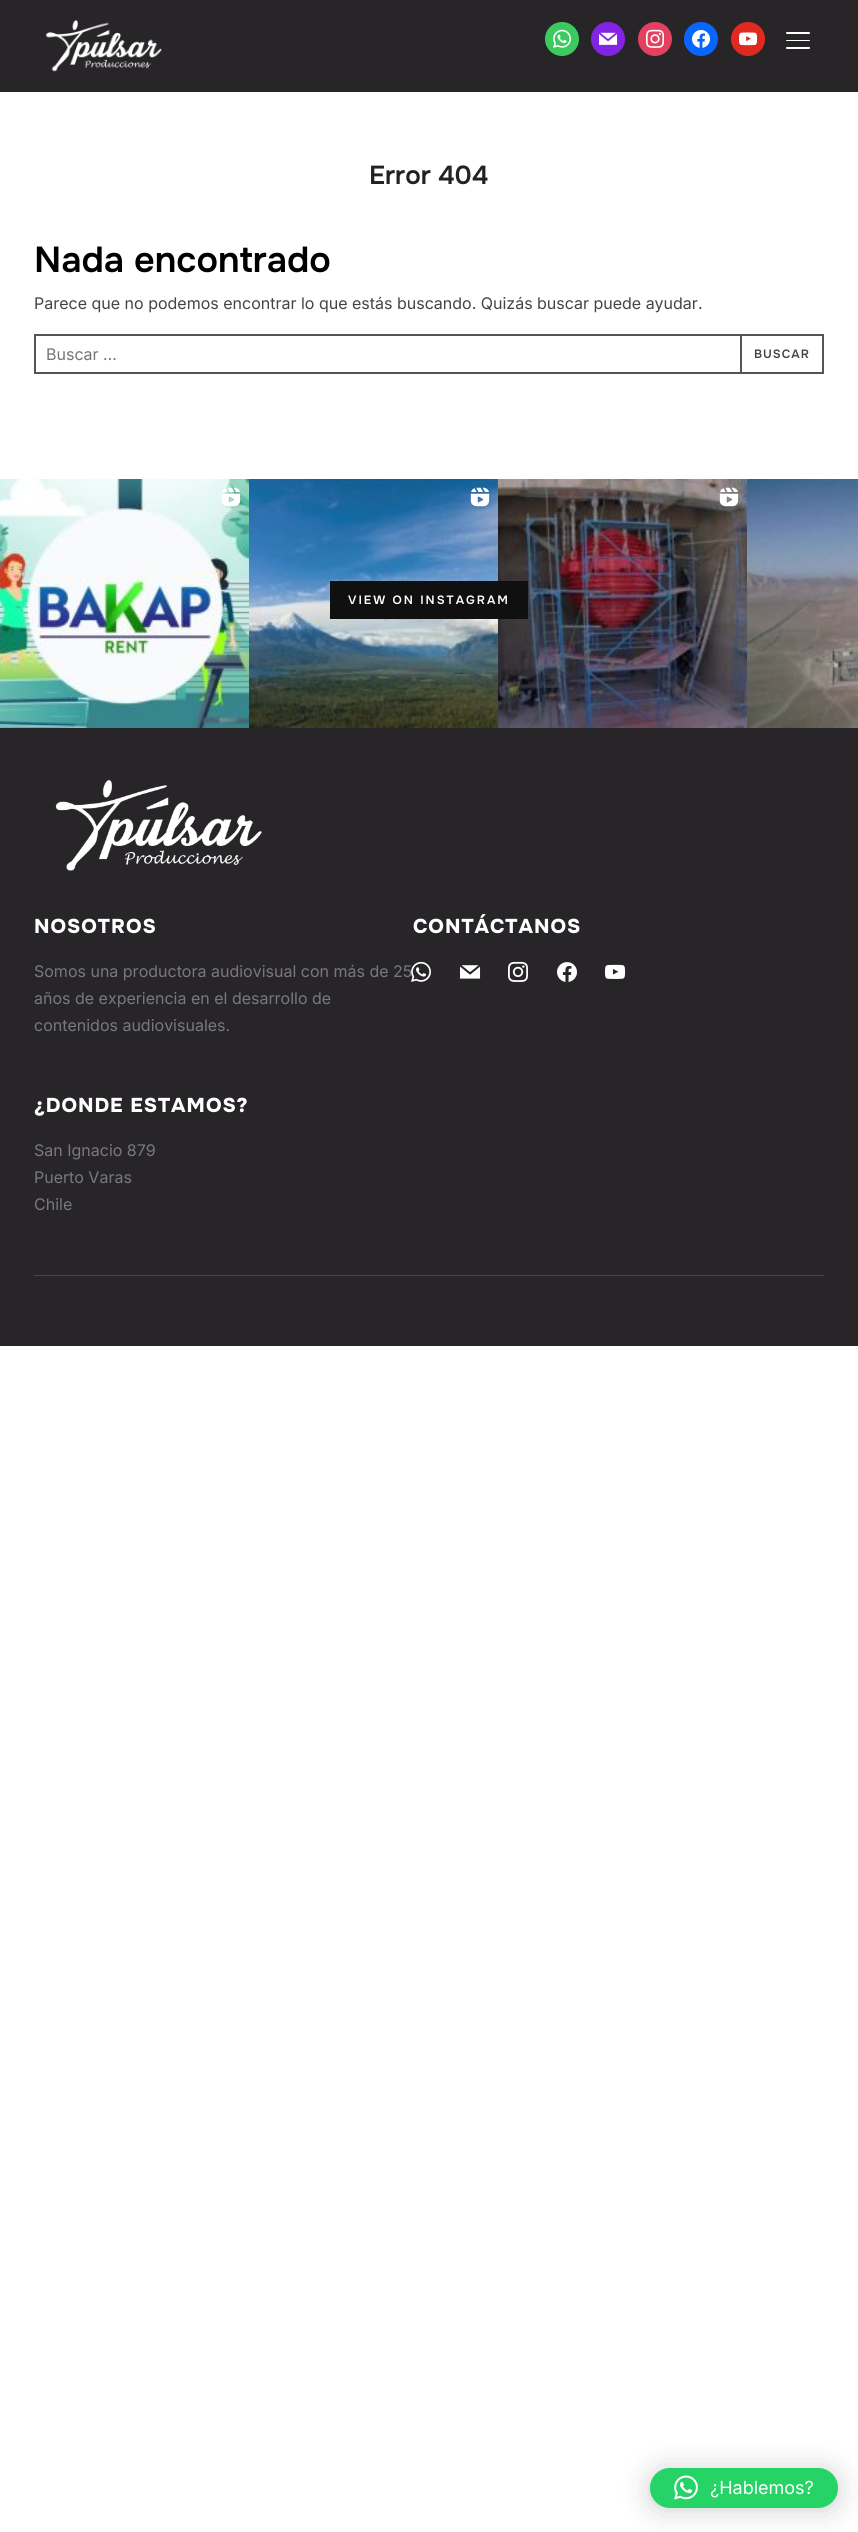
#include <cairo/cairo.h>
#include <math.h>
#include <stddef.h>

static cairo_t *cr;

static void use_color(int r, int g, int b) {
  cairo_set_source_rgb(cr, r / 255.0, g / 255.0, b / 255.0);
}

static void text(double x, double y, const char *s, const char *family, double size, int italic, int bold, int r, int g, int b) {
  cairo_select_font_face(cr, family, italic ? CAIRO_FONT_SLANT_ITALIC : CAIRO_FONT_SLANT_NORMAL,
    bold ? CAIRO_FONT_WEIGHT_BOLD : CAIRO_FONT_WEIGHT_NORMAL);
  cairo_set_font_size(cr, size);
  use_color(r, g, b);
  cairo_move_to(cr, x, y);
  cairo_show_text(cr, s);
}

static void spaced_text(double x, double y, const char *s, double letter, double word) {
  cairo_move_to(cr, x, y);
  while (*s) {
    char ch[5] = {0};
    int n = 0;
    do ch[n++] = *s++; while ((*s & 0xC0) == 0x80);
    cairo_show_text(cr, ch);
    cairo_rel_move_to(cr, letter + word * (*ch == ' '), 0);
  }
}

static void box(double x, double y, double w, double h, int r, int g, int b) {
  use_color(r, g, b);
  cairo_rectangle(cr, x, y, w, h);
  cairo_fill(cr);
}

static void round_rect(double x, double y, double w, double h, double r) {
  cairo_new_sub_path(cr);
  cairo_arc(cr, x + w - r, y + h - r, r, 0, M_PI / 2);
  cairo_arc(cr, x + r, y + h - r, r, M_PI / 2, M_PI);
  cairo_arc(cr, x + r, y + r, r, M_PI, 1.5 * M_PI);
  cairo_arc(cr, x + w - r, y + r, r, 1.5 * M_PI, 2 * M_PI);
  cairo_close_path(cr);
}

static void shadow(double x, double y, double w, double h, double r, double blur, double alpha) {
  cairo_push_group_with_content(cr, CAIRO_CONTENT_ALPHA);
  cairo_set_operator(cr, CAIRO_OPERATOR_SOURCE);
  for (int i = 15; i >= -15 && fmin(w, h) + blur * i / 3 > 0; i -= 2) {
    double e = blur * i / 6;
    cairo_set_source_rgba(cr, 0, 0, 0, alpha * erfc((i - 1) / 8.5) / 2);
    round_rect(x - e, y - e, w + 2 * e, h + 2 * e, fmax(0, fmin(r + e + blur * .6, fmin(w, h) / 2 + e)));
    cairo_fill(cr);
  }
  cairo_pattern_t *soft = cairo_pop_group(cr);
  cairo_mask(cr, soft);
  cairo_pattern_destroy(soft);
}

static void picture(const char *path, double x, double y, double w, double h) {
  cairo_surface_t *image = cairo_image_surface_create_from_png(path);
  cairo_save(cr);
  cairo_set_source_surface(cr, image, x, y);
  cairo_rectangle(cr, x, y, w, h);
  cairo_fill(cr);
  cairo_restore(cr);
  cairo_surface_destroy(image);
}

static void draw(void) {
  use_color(255, 255, 255);
  cairo_paint(cr);
  box(0, 0, 858, 92, 39, 37, 40);
  picture("img_01.png", 46, 20, 116, 52);
  use_color(60, 201, 93);
  cairo_arc(cr, 562, 39, 17, 0, 2 * M_PI);
  cairo_fill(cr);
  picture("img_02.png", 553, 29, 18, 19);
  use_color(130, 36, 227);
  cairo_arc(cr, 608, 39, 17, 0, 2 * M_PI);
  cairo_fill(cr);
  picture("img_03.png", 599, 32, 19, 13);
  use_color(228, 64, 95);
  cairo_arc(cr, 655, 39, 17, 0, 2 * M_PI);
  cairo_fill(cr);
  picture("img_04.png", 646, 29, 18, 19);
  use_color(8, 102, 255);
  cairo_arc(cr, 701, 39, 17, 0, 2 * M_PI);
  cairo_fill(cr);
  picture("img_05.png", 692, 30, 18, 18);
  use_color(224, 42, 32);
  cairo_arc(cr, 748, 39, 17, 0, 2 * M_PI);
  cairo_fill(cr);
  picture("img_06.png", 739, 32, 19, 14);
  use_color(255, 255, 255);
  round_rect(786, 32, 24, 2, 1);
  cairo_fill(cr);
  round_rect(786, 40, 24, 1, 0.5);
  cairo_fill(cr);
  round_rect(786, 47, 24, 2, 1);
  cairo_fill(cr);
  cairo_rectangle(cr, 35, 335, 788, 38);
  use_color(86, 85, 85);
  cairo_stroke(cr);
  cairo_rectangle(cr, 741, 335, 82, 38);
  cairo_stroke(cr);
  picture("img_07.png", 0, 479, 249, 249);
  picture("img_08.png", 221, 487, 21, 22);
  picture("img_09.png", 249, 479, 249, 249);
  picture("img_10.png", 470, 487, 21, 22);
  picture("img_11.png", 498, 479, 249, 249);
  picture("img_12.png", 719, 487, 20, 21);
  picture("img_13.png", 747, 479, 111, 249);
  box(330, 581, 198, 38, 16, 16, 16);
  box(0, 728, 858, 618, 39, 37, 40);
  picture("img_14.png", 55, 780, 207, 91);
  picture("img_16.png", 460, 965, 21, 14);
  picture("img_17.png", 508, 961, 20, 21);
  picture("img_18.png", 557, 962, 20, 20);
  picture("img_19.png", 605, 964, 21, 15);
  box(34, 1275, 790, 1, 70, 67, 72);
  use_color(0, 0, 0);
  shadow(650, 2470, 188, 40, 20, 16, 0.16);
  shadow(650, 2469, 188, 40, 20, 3, 0.06);
  use_color(37, 211, 102);
  round_rect(650, 2468, 188, 40, 20);
  cairo_fill(cr);
  picture("img_20.png", 674, 2475, 24, 25);
  text(369, 184, "Error 404", "Onest SemiBold", 26, 0, 0, 34, 34, 34);
  text(34, 272, "Nada encontrado", "Onest SemiBold", 36, 0, 0, 0, 0, 0);
  text(34, 309, "Parece que no podemos encontrar lo que estás buscando. Quizás buscar puede ayudar.", "Inter", 16, 0, 0, 68, 68, 68);
  text(46, 360, "Buscar …", "Inter", 16, 0, 0, 117, 117, 117);
  cairo_select_font_face(cr, "Onest SemiBold", CAIRO_FONT_SLANT_NORMAL, CAIRO_FONT_WEIGHT_NORMAL);
  cairo_set_font_size(cr, 12);
  use_color(68, 68, 68);
  spaced_text(754, 358, "BUSCAR", 1, 0);
  use_color(255, 255, 255);
  spaced_text(348, 604, "VIEW ON INSTAGRAM", 2, 0);
  cairo_select_font_face(cr, "Onest ExtraBold", CAIRO_FONT_SLANT_NORMAL, CAIRO_FONT_WEIGHT_NORMAL);
  cairo_set_font_size(cr, 20);
  spaced_text(34, 933, "NOSOTROS", 1, 0);
  text(34, 977, "Somos una productora audiovisual con más de 25", "Inter", 16, 0, 0, 120, 120, 127);
  text(34, 1004, "años de experiencia en el desarrollo de", "Inter", 16, 0, 0, 120, 120, 127);
  text(34, 1031, "contenidos audiovisuales.", "Inter", 16, 0, 0, 120, 120, 127);
  cairo_select_font_face(cr, "Onest ExtraBold", CAIRO_FONT_SLANT_NORMAL, CAIRO_FONT_WEIGHT_NORMAL);
  cairo_set_font_size(cr, 20);
  use_color(255, 255, 255);
  spaced_text(413, 933, "CONTÁCTANOS", 1, 0);
  picture("img_15.png", 411, 961, 20, 21);
  spaced_text(34, 1112, "¿DONDE ESTAMOS?", 1, 0);
  text(34, 1156, "San Ignacio 879", "Inter", 16, 0, 0, 120, 120, 127);
  text(34, 1183, "Puerto Varas", "Inter", 16, 0, 0, 120, 120, 127);
  text(34, 1210, "Chile", "Inter", 16, 0, 0, 120, 120, 127);
  text(710, 2494, "¿Hablemos?", "Inter", 18, 0, 0, 255, 255, 255);
}

int main(void) {
  cairo_surface_t *surface = cairo_image_surface_create(CAIRO_FORMAT_RGB24, 858, 2532);
  cr = cairo_create(surface);
  cairo_font_options_t *options = cairo_font_options_create();
  cairo_font_options_set_hint_metrics(options, CAIRO_HINT_METRICS_OFF);
  cairo_font_options_set_hint_style(options, CAIRO_HINT_STYLE_NONE);
  cairo_set_font_options(cr, options);
  cairo_set_miter_limit(cr, 4);
  draw();
  cairo_surface_write_to_png(surface, "out.png");
  cairo_font_options_destroy(options);
  cairo_destroy(cr);
  cairo_surface_destroy(surface);
  return 0;
}
